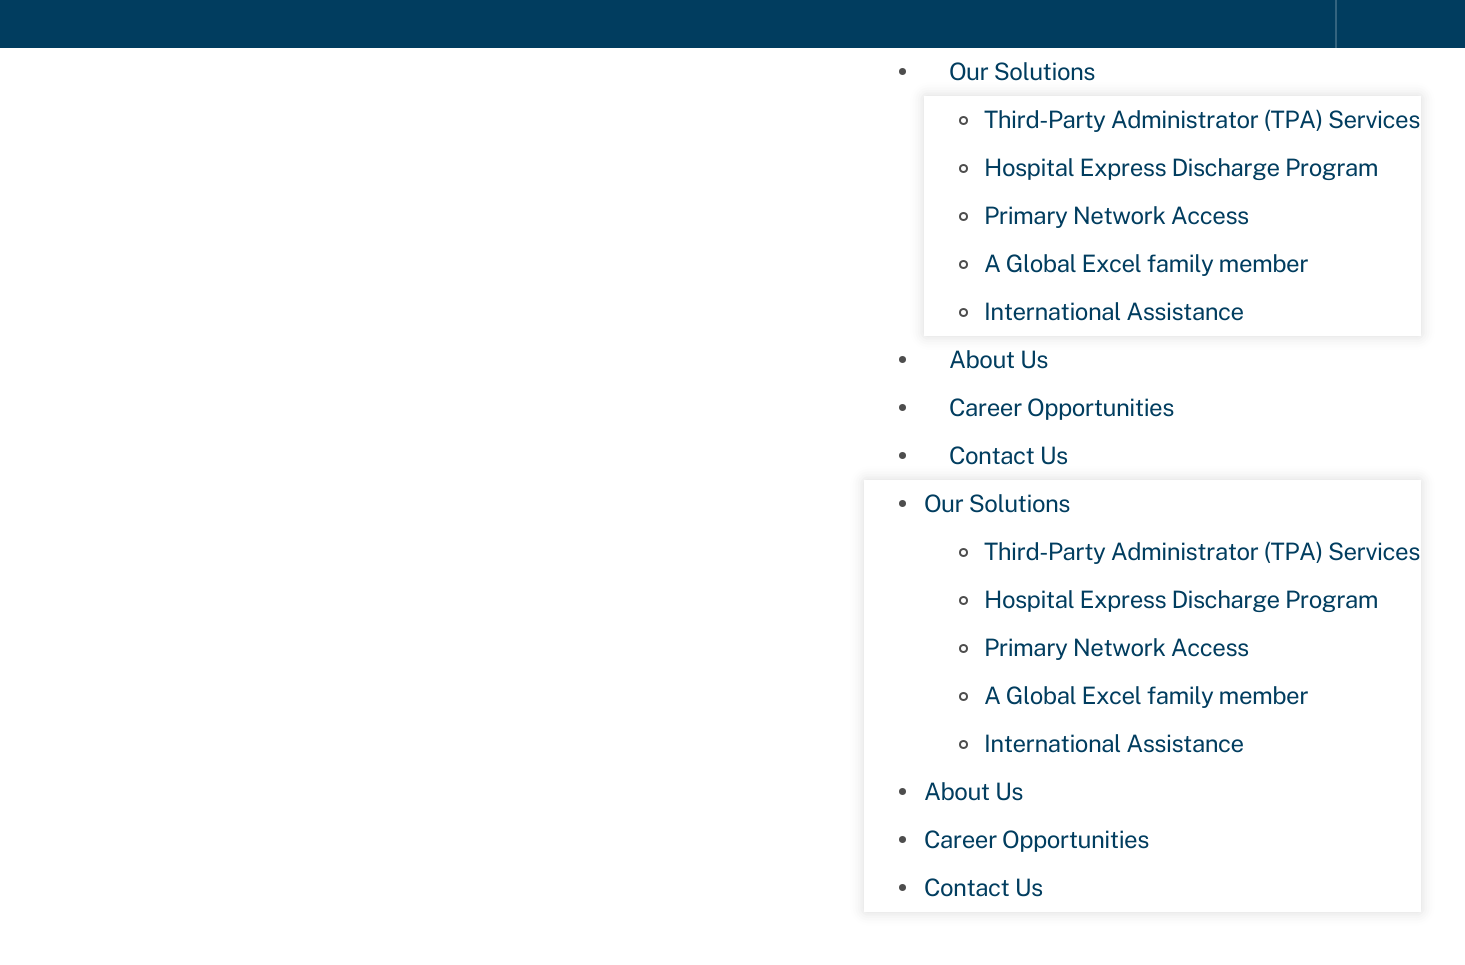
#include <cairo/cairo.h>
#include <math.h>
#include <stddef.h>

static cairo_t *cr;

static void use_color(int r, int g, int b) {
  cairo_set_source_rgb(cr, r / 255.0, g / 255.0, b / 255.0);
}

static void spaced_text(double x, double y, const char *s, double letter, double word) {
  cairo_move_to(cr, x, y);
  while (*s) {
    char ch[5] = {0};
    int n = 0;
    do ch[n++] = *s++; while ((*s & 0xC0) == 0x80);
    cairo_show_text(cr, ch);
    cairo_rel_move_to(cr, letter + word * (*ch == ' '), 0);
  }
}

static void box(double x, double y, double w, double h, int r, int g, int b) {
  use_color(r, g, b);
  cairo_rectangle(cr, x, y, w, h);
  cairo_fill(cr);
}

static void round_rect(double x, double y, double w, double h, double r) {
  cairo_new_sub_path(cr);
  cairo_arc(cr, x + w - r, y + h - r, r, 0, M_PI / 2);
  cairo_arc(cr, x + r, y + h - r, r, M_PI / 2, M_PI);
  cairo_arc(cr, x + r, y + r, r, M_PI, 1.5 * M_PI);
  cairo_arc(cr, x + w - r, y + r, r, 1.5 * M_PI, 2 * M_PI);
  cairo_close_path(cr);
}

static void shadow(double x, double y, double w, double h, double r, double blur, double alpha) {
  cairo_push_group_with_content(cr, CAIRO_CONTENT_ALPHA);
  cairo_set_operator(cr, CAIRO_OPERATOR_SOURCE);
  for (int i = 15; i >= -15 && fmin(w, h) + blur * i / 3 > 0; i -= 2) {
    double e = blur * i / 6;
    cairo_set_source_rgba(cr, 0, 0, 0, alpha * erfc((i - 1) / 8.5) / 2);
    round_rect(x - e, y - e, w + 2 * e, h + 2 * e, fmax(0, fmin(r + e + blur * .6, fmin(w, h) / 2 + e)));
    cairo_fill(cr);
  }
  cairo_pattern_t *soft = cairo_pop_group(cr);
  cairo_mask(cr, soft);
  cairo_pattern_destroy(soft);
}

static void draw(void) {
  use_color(255, 255, 255);
  cairo_paint(cr);
  box(0, 0, 1465, 48, 1, 61, 95);
  box(1335, 0, 2, 48, 52, 100, 127);
  cairo_save(cr);
  cairo_set_fill_rule(cr, CAIRO_FILL_RULE_EVEN_ODD);
  cairo_new_path(cr);
  cairo_move_to(cr, 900, 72);
  cairo_line_to(cr, 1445, 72);
  cairo_line_to(cr, 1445, 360);
  cairo_line_to(cr, 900, 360);
  cairo_close_path(cr);
  cairo_move_to(cr, 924, 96);
  cairo_line_to(cr, 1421, 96);
  cairo_line_to(cr, 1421, 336);
  cairo_line_to(cr, 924, 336);
  cairo_close_path(cr);
  cairo_clip(cr);
  use_color(0, 0, 0);
  shadow(924, 96, 497, 240, 0, 7.5, 0.15);
  cairo_restore(cr);
  use_color(77, 77, 77);
  cairo_arc(cr, 902.5, 71.5, 3.5, 0, 2 * M_PI);
  cairo_fill(cr);
  cairo_arc(cr, 963.5, 120.5, 3.5, 0, 2 * M_PI);
  cairo_stroke(cr);
  cairo_arc(cr, 963.5, 168.5, 3.5, 0, 2 * M_PI);
  cairo_stroke(cr);
  cairo_arc(cr, 963.5, 216.5, 3.5, 0, 2 * M_PI);
  cairo_stroke(cr);
  cairo_arc(cr, 963.5, 264.5, 3.5, 0, 2 * M_PI);
  cairo_stroke(cr);
  cairo_arc(cr, 963.5, 312.5, 3.5, 0, 2 * M_PI);
  cairo_stroke(cr);
  cairo_arc(cr, 902.5, 359.5, 3.5, 0, 2 * M_PI);
  cairo_fill(cr);
  cairo_arc(cr, 902.5, 407.5, 3.5, 0, 2 * M_PI);
  cairo_fill(cr);
  cairo_save(cr);
  cairo_set_fill_rule(cr, CAIRO_FILL_RULE_EVEN_ODD);
  cairo_new_path(cr);
  cairo_move_to(cr, 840, 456);
  cairo_line_to(cr, 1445, 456);
  cairo_line_to(cr, 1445, 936);
  cairo_line_to(cr, 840, 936);
  cairo_close_path(cr);
  cairo_move_to(cr, 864, 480);
  cairo_line_to(cr, 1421, 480);
  cairo_line_to(cr, 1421, 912);
  cairo_line_to(cr, 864, 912);
  cairo_close_path(cr);
  cairo_clip(cr);
  use_color(0, 0, 0);
  shadow(864, 480, 557, 432, 0, 7.5, 0.15);
  cairo_restore(cr);
  cairo_arc(cr, 902.5, 455.5, 3.5, 0, 2 * M_PI);
  cairo_fill(cr);
  cairo_arc(cr, 902.5, 503.5, 3.5, 0, 2 * M_PI);
  cairo_fill(cr);
  cairo_arc(cr, 963.5, 552.5, 3.5, 0, 2 * M_PI);
  cairo_stroke(cr);
  cairo_arc(cr, 963.5, 600.5, 3.5, 0, 2 * M_PI);
  cairo_stroke(cr);
  cairo_arc(cr, 963.5, 648.5, 3.5, 0, 2 * M_PI);
  cairo_stroke(cr);
  cairo_arc(cr, 963.5, 696.5, 3.5, 0, 2 * M_PI);
  cairo_stroke(cr);
  cairo_arc(cr, 963.5, 744.5, 3.5, 0, 2 * M_PI);
  cairo_stroke(cr);
  cairo_arc(cr, 902.5, 791.5, 3.5, 0, 2 * M_PI);
  cairo_fill(cr);
  cairo_arc(cr, 902.5, 839.5, 3.5, 0, 2 * M_PI);
  cairo_fill(cr);
  cairo_arc(cr, 902.5, 887.5, 3.5, 0, 2 * M_PI);
  cairo_fill(cr);
  cairo_select_font_face(cr, "Public Sans", CAIRO_FONT_SLANT_NORMAL, CAIRO_FONT_WEIGHT_NORMAL);
  cairo_set_font_size(cr, 24);
  use_color(1, 61, 95);
  spaced_text(949, 80, "Our Solutions", -0.5, 0);
  spaced_text(984, 128, "Third-Party Administrator (TPA) Services", -0.5, 0);
  spaced_text(984, 176, "Hospital Express Discharge Program", -0.5, 0);
  spaced_text(984, 224, "Primary Network Access", -0.5, 0);
  spaced_text(984, 272, "A Global Excel family member", -0.5, 0);
  spaced_text(984, 320, "International Assistance", -0.5, 0);
  spaced_text(949, 368, "About Us", -0.5, 0);
  spaced_text(949, 416, "Career Opportunities", -0.5, 0);
  spaced_text(949, 464, "Contact Us", -0.5, 0);
  spaced_text(924, 512, "Our Solutions", -0.5, 0);
  spaced_text(984, 560, "Third-Party Administrator (TPA) Services", -0.5, 0);
  spaced_text(984, 608, "Hospital Express Discharge Program", -0.5, 0);
  spaced_text(984, 656, "Primary Network Access", -0.5, 0);
  spaced_text(984, 704, "A Global Excel family member", -0.5, 0);
  spaced_text(984, 752, "International Assistance", -0.5, 0);
  spaced_text(924, 800, "About Us", -0.5, 0);
  spaced_text(924, 848, "Career Opportunities", -0.5, 0);
  spaced_text(924, 896, "Contact Us", -0.5, 0);
}

int main(void) {
  cairo_surface_t *surface = cairo_image_surface_create(CAIRO_FORMAT_RGB24, 1465, 965);
  cr = cairo_create(surface);
  cairo_font_options_t *options = cairo_font_options_create();
  cairo_font_options_set_hint_metrics(options, CAIRO_HINT_METRICS_OFF);
  cairo_font_options_set_hint_style(options, CAIRO_HINT_STYLE_NONE);
  cairo_set_font_options(cr, options);
  cairo_set_miter_limit(cr, 4);
  draw();
  cairo_surface_write_to_png(surface, "out.png");
  cairo_font_options_destroy(options);
  cairo_destroy(cr);
  cairo_surface_destroy(surface);
  return 0;
}
